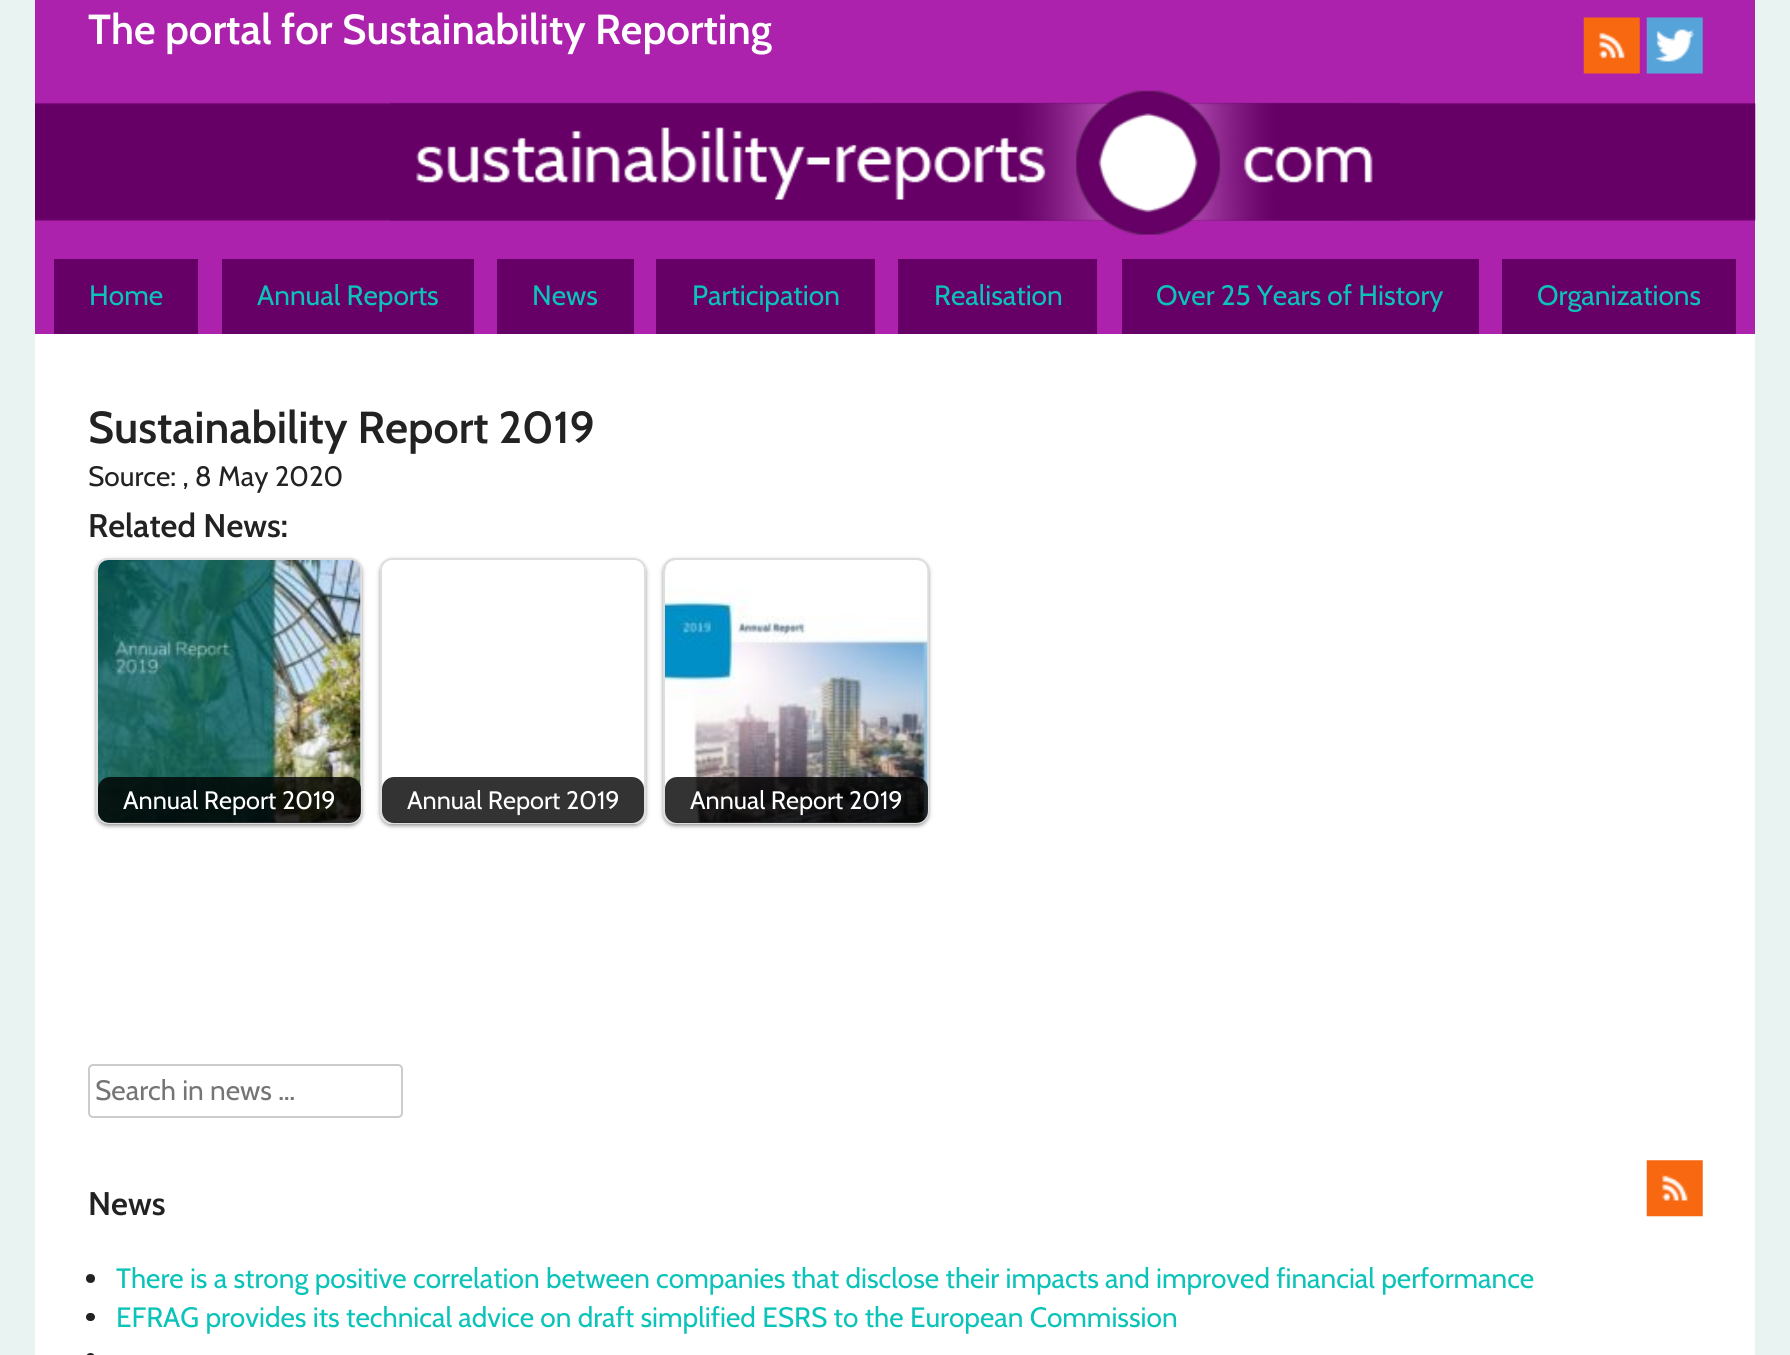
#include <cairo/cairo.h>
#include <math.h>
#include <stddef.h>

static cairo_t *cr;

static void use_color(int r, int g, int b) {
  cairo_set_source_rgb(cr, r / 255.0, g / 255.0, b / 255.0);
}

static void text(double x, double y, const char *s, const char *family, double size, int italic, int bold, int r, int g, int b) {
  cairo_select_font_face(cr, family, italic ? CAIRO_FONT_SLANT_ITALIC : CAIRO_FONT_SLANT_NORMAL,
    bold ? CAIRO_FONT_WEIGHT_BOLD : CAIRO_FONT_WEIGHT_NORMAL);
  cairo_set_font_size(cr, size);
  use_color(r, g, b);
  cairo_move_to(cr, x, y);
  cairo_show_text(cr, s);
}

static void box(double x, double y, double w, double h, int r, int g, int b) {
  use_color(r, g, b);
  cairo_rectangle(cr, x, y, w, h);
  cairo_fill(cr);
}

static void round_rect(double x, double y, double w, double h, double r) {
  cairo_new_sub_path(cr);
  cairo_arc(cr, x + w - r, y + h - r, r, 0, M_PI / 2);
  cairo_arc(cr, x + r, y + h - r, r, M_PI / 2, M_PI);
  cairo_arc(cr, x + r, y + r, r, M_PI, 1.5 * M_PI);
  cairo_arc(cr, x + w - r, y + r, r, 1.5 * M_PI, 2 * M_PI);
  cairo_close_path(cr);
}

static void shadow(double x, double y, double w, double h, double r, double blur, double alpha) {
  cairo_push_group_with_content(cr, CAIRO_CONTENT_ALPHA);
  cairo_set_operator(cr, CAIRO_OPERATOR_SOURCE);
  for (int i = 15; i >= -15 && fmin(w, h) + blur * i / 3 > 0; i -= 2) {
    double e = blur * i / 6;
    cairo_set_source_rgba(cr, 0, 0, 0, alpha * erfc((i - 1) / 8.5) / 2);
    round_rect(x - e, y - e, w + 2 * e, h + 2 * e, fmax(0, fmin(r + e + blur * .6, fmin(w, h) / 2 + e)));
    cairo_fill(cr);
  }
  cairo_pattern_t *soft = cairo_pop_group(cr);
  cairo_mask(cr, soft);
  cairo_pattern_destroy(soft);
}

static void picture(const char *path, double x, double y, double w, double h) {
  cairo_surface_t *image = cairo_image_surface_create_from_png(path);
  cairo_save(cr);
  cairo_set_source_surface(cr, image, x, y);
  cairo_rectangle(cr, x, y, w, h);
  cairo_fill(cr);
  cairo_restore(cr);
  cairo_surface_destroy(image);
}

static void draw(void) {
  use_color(233, 243, 241);
  cairo_paint(cr);
  box(35, 334, 1720, 1021, 255, 255, 255);
  box(35, 0, 1720, 334, 172, 34, 172);
  picture("img_01.png", 1583, 17, 57, 57);
  picture("img_02.png", 1646, 17, 57, 57);
  picture("img_03.png", 35, 102, 1721, 119);
  picture("img_04.png", 390, 90, 1010, 145);
  box(54, 259, 144, 75, 102, 0, 102);
  box(222, 259, 252, 75, 102, 0, 102);
  box(497, 259, 137, 75, 102, 0, 102);
  box(656, 259, 219, 75, 102, 0, 102);
  box(898, 259, 199, 75, 102, 0, 102);
  box(1122, 259, 357, 75, 102, 0, 102);
  box(1502, 259, 234, 75, 102, 0, 102);
  use_color(0, 0, 0);
  shadow(96, 560, 266, 266, 12, 2, 0.4);
  round_rect(97, 559, 264, 264, 11);
  use_color(221, 221, 221);
  cairo_stroke(cr);
  picture("img_05.png", 98, 560, 263, 263);
  cairo_save(cr);
  round_rect(98, 560, 263, 263, 11);
  cairo_clip(cr);
  cairo_set_source_rgba(cr, 0, 0, 0, 0.8);
  round_rect(98, 777, 263, 46, 12);
  cairo_fill(cr);
  cairo_restore(cr);
  cairo_save(cr);
  cairo_set_fill_rule(cr, CAIRO_FILL_RULE_EVEN_ODD);
  cairo_new_path(cr);
  cairo_move_to(cr, 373, 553);
  cairo_line_to(cr, 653, 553);
  cairo_line_to(cr, 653, 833);
  cairo_line_to(cr, 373, 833);
  cairo_close_path(cr);
  cairo_move_to(cr, 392, 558);
  cairo_line_to(cr, 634, 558);
  cairo_curve_to(cr, 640.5, 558, 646, 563.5, 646, 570);
  cairo_line_to(cr, 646, 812);
  cairo_curve_to(cr, 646, 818.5, 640.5, 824, 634, 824);
  cairo_line_to(cr, 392, 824);
  cairo_curve_to(cr, 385.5, 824, 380, 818.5, 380, 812);
  cairo_line_to(cr, 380, 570);
  cairo_curve_to(cr, 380, 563.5, 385.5, 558, 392, 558);
  cairo_close_path(cr);
  cairo_clip(cr);
  use_color(0, 0, 0);
  shadow(380, 560, 266, 266, 12, 2, 0.4);
  cairo_restore(cr);
  round_rect(381, 559, 264, 264, 11);
  cairo_stroke(cr);
  cairo_save(cr);
  round_rect(382, 560, 262, 263, 11);
  cairo_clip(cr);
  cairo_set_source_rgba(cr, 0, 0, 0, 0.8);
  round_rect(382, 777, 262, 46, 12);
  cairo_fill(cr);
  cairo_restore(cr);
  use_color(0, 0, 0);
  shadow(663, 560, 266, 266, 12, 2, 0.4);
  round_rect(664, 559, 264, 264, 11);
  use_color(221, 221, 221);
  cairo_stroke(cr);
  picture("img_06.png", 665, 560, 263, 263);
  cairo_save(cr);
  round_rect(665, 560, 263, 263, 11);
  cairo_clip(cr);
  cairo_set_source_rgba(cr, 0, 0, 0, 0.8);
  round_rect(665, 777, 263, 46, 12);
  cairo_fill(cr);
  cairo_restore(cr);
  round_rect(89, 1065, 313, 52, 4);
  use_color(204, 204, 204);
  cairo_stroke(cr);
  use_color(34, 34, 34);
  cairo_arc(cr, 90.5, 1278.5, 4.5, 0, 2 * M_PI);
  cairo_fill(cr);
  round_rect(86, 1313, 9, 8, 4);
  cairo_fill(cr);
  round_rect(86, 1353, 9, 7, 4.5);
  cairo_fill(cr);
  picture("img_07.png", 1646, 1160, 57, 57);
  text(88, 44, "The portal for Sustainability Reporting", "Cabin SemiBold", 42, 0, 0, 255, 255, 255);
  text(89, 305, "Home", "Cabin", 28, 0, 0, 11, 195, 185);
  text(257, 305, "Annual Reports", "Cabin", 28, 0, 0, 11, 195, 185);
  text(532, 305, "News", "Cabin", 28, 0, 0, 11, 195, 185);
  text(692, 305, "Participation", "Cabin", 28, 0, 0, 11, 195, 185);
  text(934, 305, "Realisation", "Cabin", 28, 0, 0, 11, 195, 185);
  text(1156, 305, "Over 25 Years of History", "Cabin", 28, 0, 0, 11, 195, 185);
  text(1537, 305, "Organizations", "Cabin", 28, 0, 0, 11, 195, 185);
  text(88, 443, "Sustainability Report 2019", "Cabin SemiBold", 44.75, 0, 0, 34, 34, 34);
  text(88, 486, "Source: , 8 May 2020", "Cabin", 28, 0, 0, 34, 34, 34);
  text(88, 537, "Related News:", "Cabin SemiBold", 32.75, 0, 0, 34, 34, 34);
  text(123, 809, "Annual Report 2019", "Cabin", 25.25, 0, 0, 255, 255, 255);
  text(407, 809, "Annual Report 2019", "Cabin", 25.25, 0, 0, 255, 255, 255);
  text(690, 809, "Annual Report 2019", "Cabin", 25.25, 0, 0, 255, 255, 255);
  text(95, 1100, "Search in news …", "Cabin", 28, 0, 0, 117, 117, 117);
  text(88, 1215, "News", "Cabin SemiBold", 32.75, 0, 0, 34, 34, 34);
  text(116, 1288, "There is a strong positive correlation between companies that disclose their impacts and improved financial performance", "Cabin", 28, 0, 0, 11, 195, 185);
  text(116, 1327, "EFRAG provides its technical advice on draft simplified ESRS to the European Commission", "Cabin", 28, 0, 0, 11, 195, 185);
}

int main(void) {
  cairo_surface_t *surface = cairo_image_surface_create(CAIRO_FORMAT_RGB24, 1790, 1355);
  cr = cairo_create(surface);
  cairo_font_options_t *options = cairo_font_options_create();
  cairo_font_options_set_hint_metrics(options, CAIRO_HINT_METRICS_OFF);
  cairo_font_options_set_hint_style(options, CAIRO_HINT_STYLE_NONE);
  cairo_set_font_options(cr, options);
  cairo_set_miter_limit(cr, 4);
  draw();
  cairo_surface_write_to_png(surface, "out.png");
  cairo_font_options_destroy(options);
  cairo_destroy(cr);
  cairo_surface_destroy(surface);
  return 0;
}
